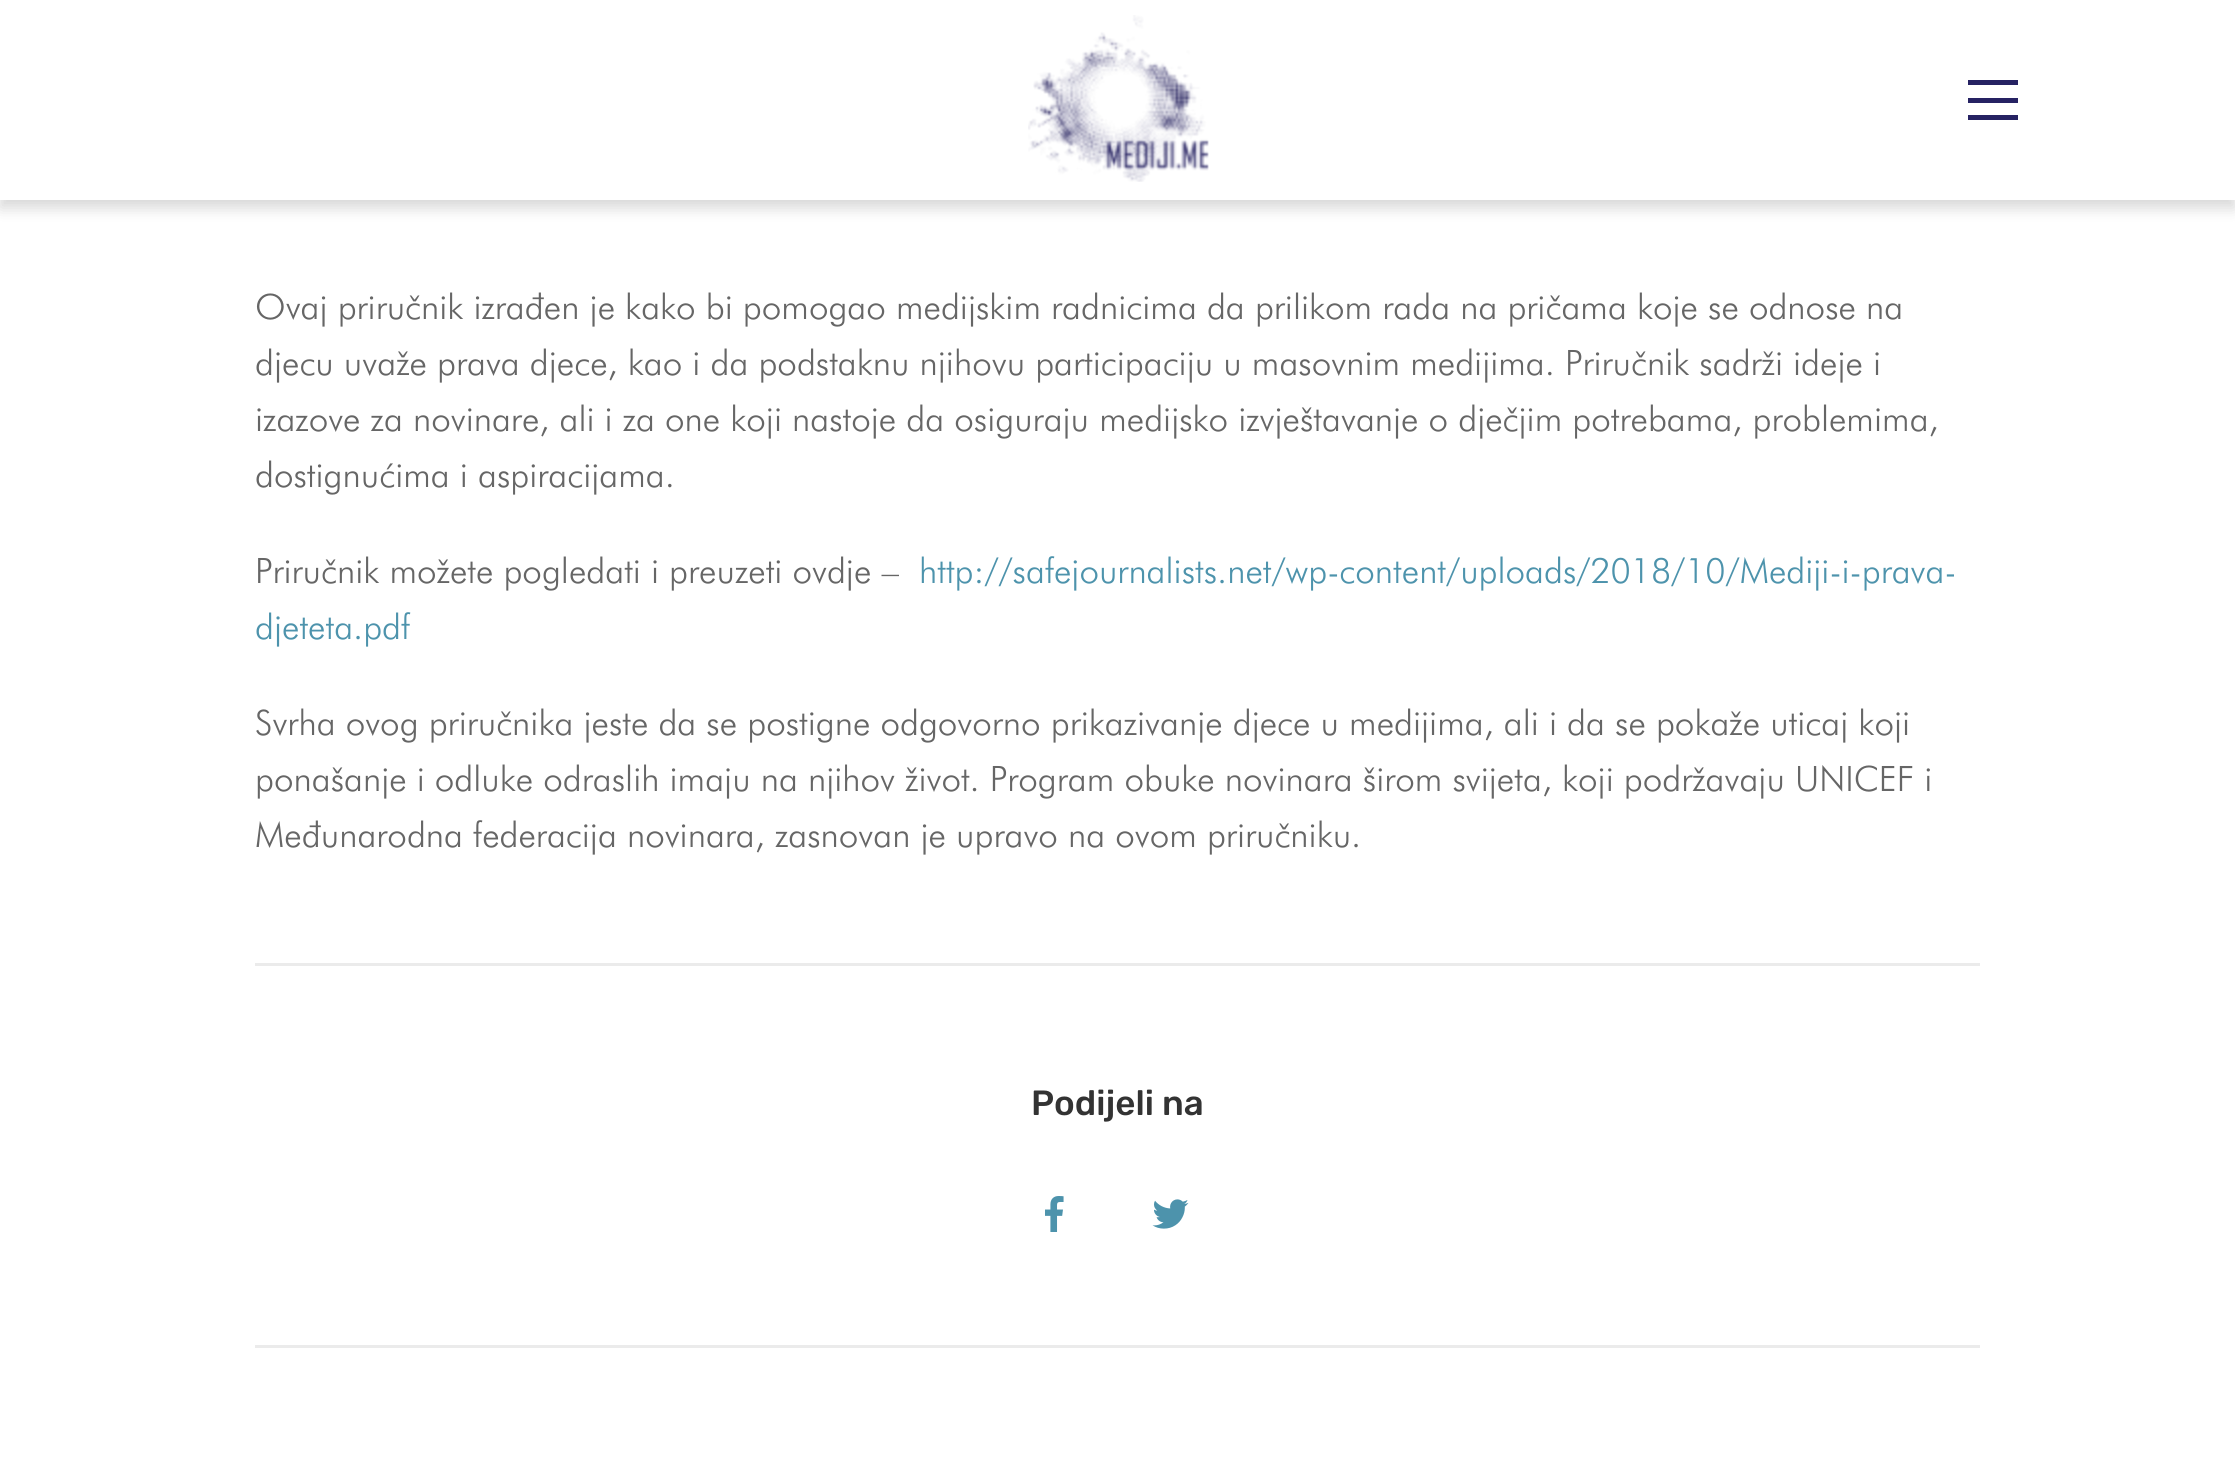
#include <cairo/cairo.h>
#include <math.h>
#include <stddef.h>

static cairo_t *cr;

static void use_color(int r, int g, int b) {
  cairo_set_source_rgb(cr, r / 255.0, g / 255.0, b / 255.0);
}

static void text(double x, double y, const char *s, const char *family, double size, int italic, int bold, int r, int g, int b) {
  cairo_select_font_face(cr, family, italic ? CAIRO_FONT_SLANT_ITALIC : CAIRO_FONT_SLANT_NORMAL,
    bold ? CAIRO_FONT_WEIGHT_BOLD : CAIRO_FONT_WEIGHT_NORMAL);
  cairo_set_font_size(cr, size);
  use_color(r, g, b);
  cairo_move_to(cr, x, y);
  cairo_show_text(cr, s);
}

static void box(double x, double y, double w, double h, int r, int g, int b) {
  use_color(r, g, b);
  cairo_rectangle(cr, x, y, w, h);
  cairo_fill(cr);
}

static void round_rect(double x, double y, double w, double h, double r) {
  cairo_new_sub_path(cr);
  cairo_arc(cr, x + w - r, y + h - r, r, 0, M_PI / 2);
  cairo_arc(cr, x + r, y + h - r, r, M_PI / 2, M_PI);
  cairo_arc(cr, x + r, y + r, r, M_PI, 1.5 * M_PI);
  cairo_arc(cr, x + w - r, y + r, r, 1.5 * M_PI, 2 * M_PI);
  cairo_close_path(cr);
}

static void shadow(double x, double y, double w, double h, double r, double blur, double alpha) {
  cairo_push_group_with_content(cr, CAIRO_CONTENT_ALPHA);
  cairo_set_operator(cr, CAIRO_OPERATOR_SOURCE);
  for (int i = 15; i >= -15 && fmin(w, h) + blur * i / 3 > 0; i -= 2) {
    double e = blur * i / 6;
    cairo_set_source_rgba(cr, 0, 0, 0, alpha * erfc((i - 1) / 8.5) / 2);
    round_rect(x - e, y - e, w + 2 * e, h + 2 * e, fmax(0, fmin(r + e + blur * .6, fmin(w, h) / 2 + e)));
    cairo_fill(cr);
  }
  cairo_pattern_t *soft = cairo_pop_group(cr);
  cairo_mask(cr, soft);
  cairo_pattern_destroy(soft);
}

static void picture(const char *path, double x, double y, double w, double h) {
  cairo_surface_t *image = cairo_image_surface_create_from_png(path);
  cairo_save(cr);
  cairo_set_source_surface(cr, image, x, y);
  cairo_rectangle(cr, x, y, w, h);
  cairo_fill(cr);
  cairo_restore(cr);
  cairo_surface_destroy(image);
}

static void draw(void) {
  use_color(255, 255, 255);
  cairo_paint(cr);
  use_color(0, 0, 0);
  shadow(0, 8, 2235, 200, 0, 7.5, 0.16);
  box(0, 0, 2235, 200, 255, 255, 255);
  picture("img_01.png", 1028, 15, 181, 167);
  box(1968, 98, 50, 5, 38, 34, 99);
  box(1968, 80, 50, 5, 38, 34, 99);
  box(1968, 115, 50, 5, 38, 34, 99);
  box(255, 963, 1725, 3, 235, 235, 235);
  picture("img_02.png", 1045, 1196, 19, 36);
  picture("img_03.png", 1152, 1199, 37, 30);
  box(255, 1345, 1725, 3, 235, 235, 235);
  text(255, 319, "Ovaj priručnik izrađen je kako bi pomogao medijskim radnicima da prilikom rada na pričama koje se odnose na", "Futura Light", 35, 0, 0, 102, 102, 102);
  text(255, 375, "djecu uvaže prava djece, kao i da podstaknu njihovu participaciju u masovnim medijima. Priručnik sadrži ideje i", "Futura Light", 35, 0, 0, 102, 102, 102);
  text(255, 431, "izazove za novinare, ali i za one koji nastoje da osiguraju medijsko izvještavanje o dječjim potrebama, problemima,", "Futura Light", 35, 0, 0, 102, 102, 102);
  text(255, 487, "dostignućima i aspiracijama.", "Futura Light", 35, 0, 0, 102, 102, 102);
  text(255, 583, "Priručnik možete pogledati i preuzeti ovdje –", "Futura Light", 35, 0, 0, 102, 102, 102);
  text(919, 583, "http://safejournalists.net/wp-content/uploads/2018/10/Mediji-i-prava-", "Futura Light", 35, 0, 0, 77, 147, 172);
  text(255, 639, "djeteta.pdf", "Futura Light", 35, 0, 0, 77, 147, 172);
  text(255, 735, "Svrha ovog priručnika jeste da se postigne odgovorno prikazivanje djece u medijima, ali i da se pokaže uticaj koji", "Futura Light", 35, 0, 0, 102, 102, 102);
  text(255, 791, "ponašanje i odluke odraslih imaju na njihov život. Program obuke novinara širom svijeta, koji podržavaju UNICEF i", "Futura Light", 35, 0, 0, 102, 102, 102);
  text(255, 847, "Međunarodna federacija novinara, zasnovan je upravo na ovom priručniku.", "Futura Light", 35, 0, 0, 102, 102, 102);
  text(1031, 1115, "Podijeli na", "Rubik Medium", 35, 0, 0, 51, 51, 51);
}

int main(void) {
  cairo_surface_t *surface = cairo_image_surface_create(CAIRO_FORMAT_RGB24, 2235, 1475);
  cr = cairo_create(surface);
  cairo_font_options_t *options = cairo_font_options_create();
  cairo_font_options_set_hint_metrics(options, CAIRO_HINT_METRICS_OFF);
  cairo_font_options_set_hint_style(options, CAIRO_HINT_STYLE_NONE);
  cairo_set_font_options(cr, options);
  cairo_set_miter_limit(cr, 4);
  draw();
  cairo_surface_write_to_png(surface, "out.png");
  cairo_font_options_destroy(options);
  cairo_destroy(cr);
  cairo_surface_destroy(surface);
  return 0;
}
